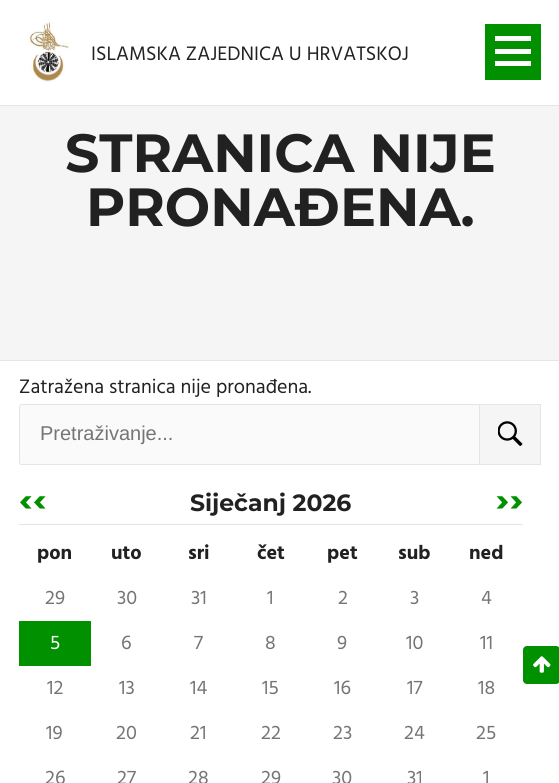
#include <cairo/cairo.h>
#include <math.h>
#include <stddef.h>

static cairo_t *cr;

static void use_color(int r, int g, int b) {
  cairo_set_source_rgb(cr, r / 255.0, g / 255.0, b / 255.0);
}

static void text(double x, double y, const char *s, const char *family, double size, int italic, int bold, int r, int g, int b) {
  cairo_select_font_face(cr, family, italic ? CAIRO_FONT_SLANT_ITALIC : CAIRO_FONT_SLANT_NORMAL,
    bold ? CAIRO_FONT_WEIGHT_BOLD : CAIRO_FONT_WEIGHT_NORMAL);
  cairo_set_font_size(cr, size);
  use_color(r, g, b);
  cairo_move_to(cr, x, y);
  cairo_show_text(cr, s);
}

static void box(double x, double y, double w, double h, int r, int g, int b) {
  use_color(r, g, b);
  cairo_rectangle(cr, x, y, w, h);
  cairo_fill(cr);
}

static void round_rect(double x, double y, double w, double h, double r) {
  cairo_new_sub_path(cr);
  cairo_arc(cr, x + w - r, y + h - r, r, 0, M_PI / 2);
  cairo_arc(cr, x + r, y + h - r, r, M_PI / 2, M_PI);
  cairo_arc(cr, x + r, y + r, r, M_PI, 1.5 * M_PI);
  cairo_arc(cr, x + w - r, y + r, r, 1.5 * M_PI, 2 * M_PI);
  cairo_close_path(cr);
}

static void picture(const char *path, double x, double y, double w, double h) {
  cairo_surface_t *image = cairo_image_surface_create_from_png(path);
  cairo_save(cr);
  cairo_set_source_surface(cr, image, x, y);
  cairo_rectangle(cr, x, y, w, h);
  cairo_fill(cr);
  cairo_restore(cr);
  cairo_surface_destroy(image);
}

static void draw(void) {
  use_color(255, 255, 255);
  cairo_paint(cr);
  box(0, 105, 559, 1, 229, 229, 229);
  picture("img_01.png", 29, 20, 41, 62);
  box(485, 24, 56, 56, 0, 144, 0);
  box(495, 49, 36, 5, 255, 255, 255);
  box(495, 36, 36, 5, 255, 255, 255);
  box(495, 61, 36, 5, 255, 255, 255);
  box(0, 106, 559, 254, 245, 245, 245);
  box(0, 360, 559, 1, 229, 229, 229);
  use_color(250, 250, 250);
  round_rect(19.5, 404.5, 503, 60, 2);
  cairo_fill_preserve(cr);
  use_color(229, 229, 229);
  cairo_set_line_width(cr, 1);
  cairo_stroke(cr);
  box(480, 405, 60, 59, 245, 245, 245);
  picture("img_02.png", 498, 421, 25, 25);
  cairo_rectangle(cr, 479.5, 404.5, 61, 60);
  use_color(229, 229, 229);
  cairo_stroke(cr);
  box(19, 524, 504, 1, 227, 227, 227);
  box(19, 621, 72, 45, 0, 144, 0);
  round_rect(523, 646, 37, 38, 4);
  cairo_fill(cr);
  picture("img_03.png", 533, 656, 18, 17);
  text(91, 60, "ISLAMSKA ZAJEDNICA U HRVATSKOJ", "Hind", 20, 0, 0, 33, 33, 33);
  text(65, 172, "STRANICA NIJE", "Montserrat", 53.75, 0, 1, 33, 33, 33);
  text(86, 226, "PRONAĐENA.", "Montserrat", 53.75, 0, 1, 33, 33, 33);
  text(19, 393, "Zatražena stranica nije pronađena.", "Hind", 20, 0, 0, 33, 33, 33);
  text(40, 440, "Pretraživanje...", "Liberation Sans", 20, 0, 0, 117, 117, 117);
  text(190, 511, "Siječanj 2026", "Montserrat", 23.5, 0, 1, 33, 33, 33);
  text(19, 512, "‹‹", "Hind", 38, 0, 1, 0, 144, 0);
  text(495, 512, "››", "Hind", 38, 0, 1, 0, 144, 0);
  text(37, 559, "pon", "Hind", 20, 0, 1, 33, 33, 33);
  text(111, 559, "uto", "Hind", 20, 0, 1, 33, 33, 33);
  text(188, 559, "sri", "Hind", 20, 0, 1, 33, 33, 33);
  text(257, 559, "čet", "Hind", 20, 0, 1, 33, 33, 33);
  text(327, 559, "pet", "Hind", 20, 0, 1, 33, 33, 33);
  text(398, 559, "sub", "Hind", 20, 0, 1, 33, 33, 33);
  text(469, 559, "ned", "Hind", 20, 0, 1, 33, 33, 33);
  text(45, 604, "29", "Hind", 20, 0, 0, 117, 117, 117);
  text(117, 604, "30", "Hind", 20, 0, 0, 117, 117, 117);
  text(191, 604, "31", "Hind", 20, 0, 0, 117, 117, 117);
  text(267, 604, "1", "Hind", 20, 0, 0, 117, 117, 117);
  text(338, 604, "2", "Hind", 20, 0, 0, 117, 117, 117);
  text(410, 604, "3", "Hind", 20, 0, 0, 117, 117, 117);
  text(481, 604, "4", "Hind", 20, 0, 0, 117, 117, 117);
  text(50, 649, "5", "Hind", 20, 0, 0, 255, 255, 255);
  text(121, 649, "6", "Hind", 20, 0, 0, 117, 117, 117);
  text(194, 649, "7", "Hind", 20, 0, 0, 117, 117, 117);
  text(265, 649, "8", "Hind", 20, 0, 0, 117, 117, 117);
  text(337, 649, "9", "Hind", 20, 0, 0, 117, 117, 117);
  text(406, 649, "10", "Hind", 20, 0, 0, 117, 117, 117);
  text(480, 649, "11", "Hind", 20, 0, 0, 117, 117, 117);
  text(47, 694, "12", "Hind", 20, 0, 0, 117, 117, 117);
  text(119, 694, "13", "Hind", 20, 0, 0, 117, 117, 117);
  text(190, 694, "14", "Hind", 20, 0, 0, 117, 117, 117);
  text(262, 694, "15", "Hind", 20, 0, 0, 117, 117, 117);
  text(334, 694, "16", "Hind", 20, 0, 0, 117, 117, 117);
  text(407, 694, "17", "Hind", 20, 0, 0, 117, 117, 117);
  text(478, 694, "18", "Hind", 20, 0, 0, 117, 117, 117);
  text(46, 739, "19", "Hind", 20, 0, 0, 117, 117, 117);
  text(116, 739, "20", "Hind", 20, 0, 0, 117, 117, 117);
  text(190, 739, "21", "Hind", 20, 0, 0, 117, 117, 117);
  text(261, 739, "22", "Hind", 20, 0, 0, 117, 117, 117);
  text(333, 739, "23", "Hind", 20, 0, 0, 117, 117, 117);
  text(404, 739, "24", "Hind", 20, 0, 0, 117, 117, 117);
  text(476, 739, "25", "Hind", 20, 0, 0, 117, 117, 117);
  text(45, 784, "26", "Hind", 20, 0, 0, 117, 117, 117);
  text(117, 784, "27", "Hind", 20, 0, 0, 117, 117, 117);
  text(188, 784, "28", "Hind", 20, 0, 0, 117, 117, 117);
  text(261, 784, "29", "Hind", 20, 0, 0, 117, 117, 117);
  text(332, 784, "30", "Hind", 20, 0, 0, 117, 117, 117);
  text(407, 784, "31", "Hind", 20, 0, 0, 117, 117, 117);
  text(483, 784, "1", "Hind", 20, 0, 0, 117, 117, 117);
}

int main(void) {
  cairo_surface_t *surface = cairo_image_surface_create(CAIRO_FORMAT_RGB24, 559, 783);
  cr = cairo_create(surface);
  cairo_font_options_t *options = cairo_font_options_create();
  cairo_font_options_set_hint_metrics(options, CAIRO_HINT_METRICS_OFF);
  cairo_font_options_set_hint_style(options, CAIRO_HINT_STYLE_NONE);
  cairo_set_font_options(cr, options);
  cairo_set_miter_limit(cr, 4);
  draw();
  cairo_surface_write_to_png(surface, "out.png");
  cairo_font_options_destroy(options);
  cairo_destroy(cr);
  cairo_surface_destroy(surface);
  return 0;
}
